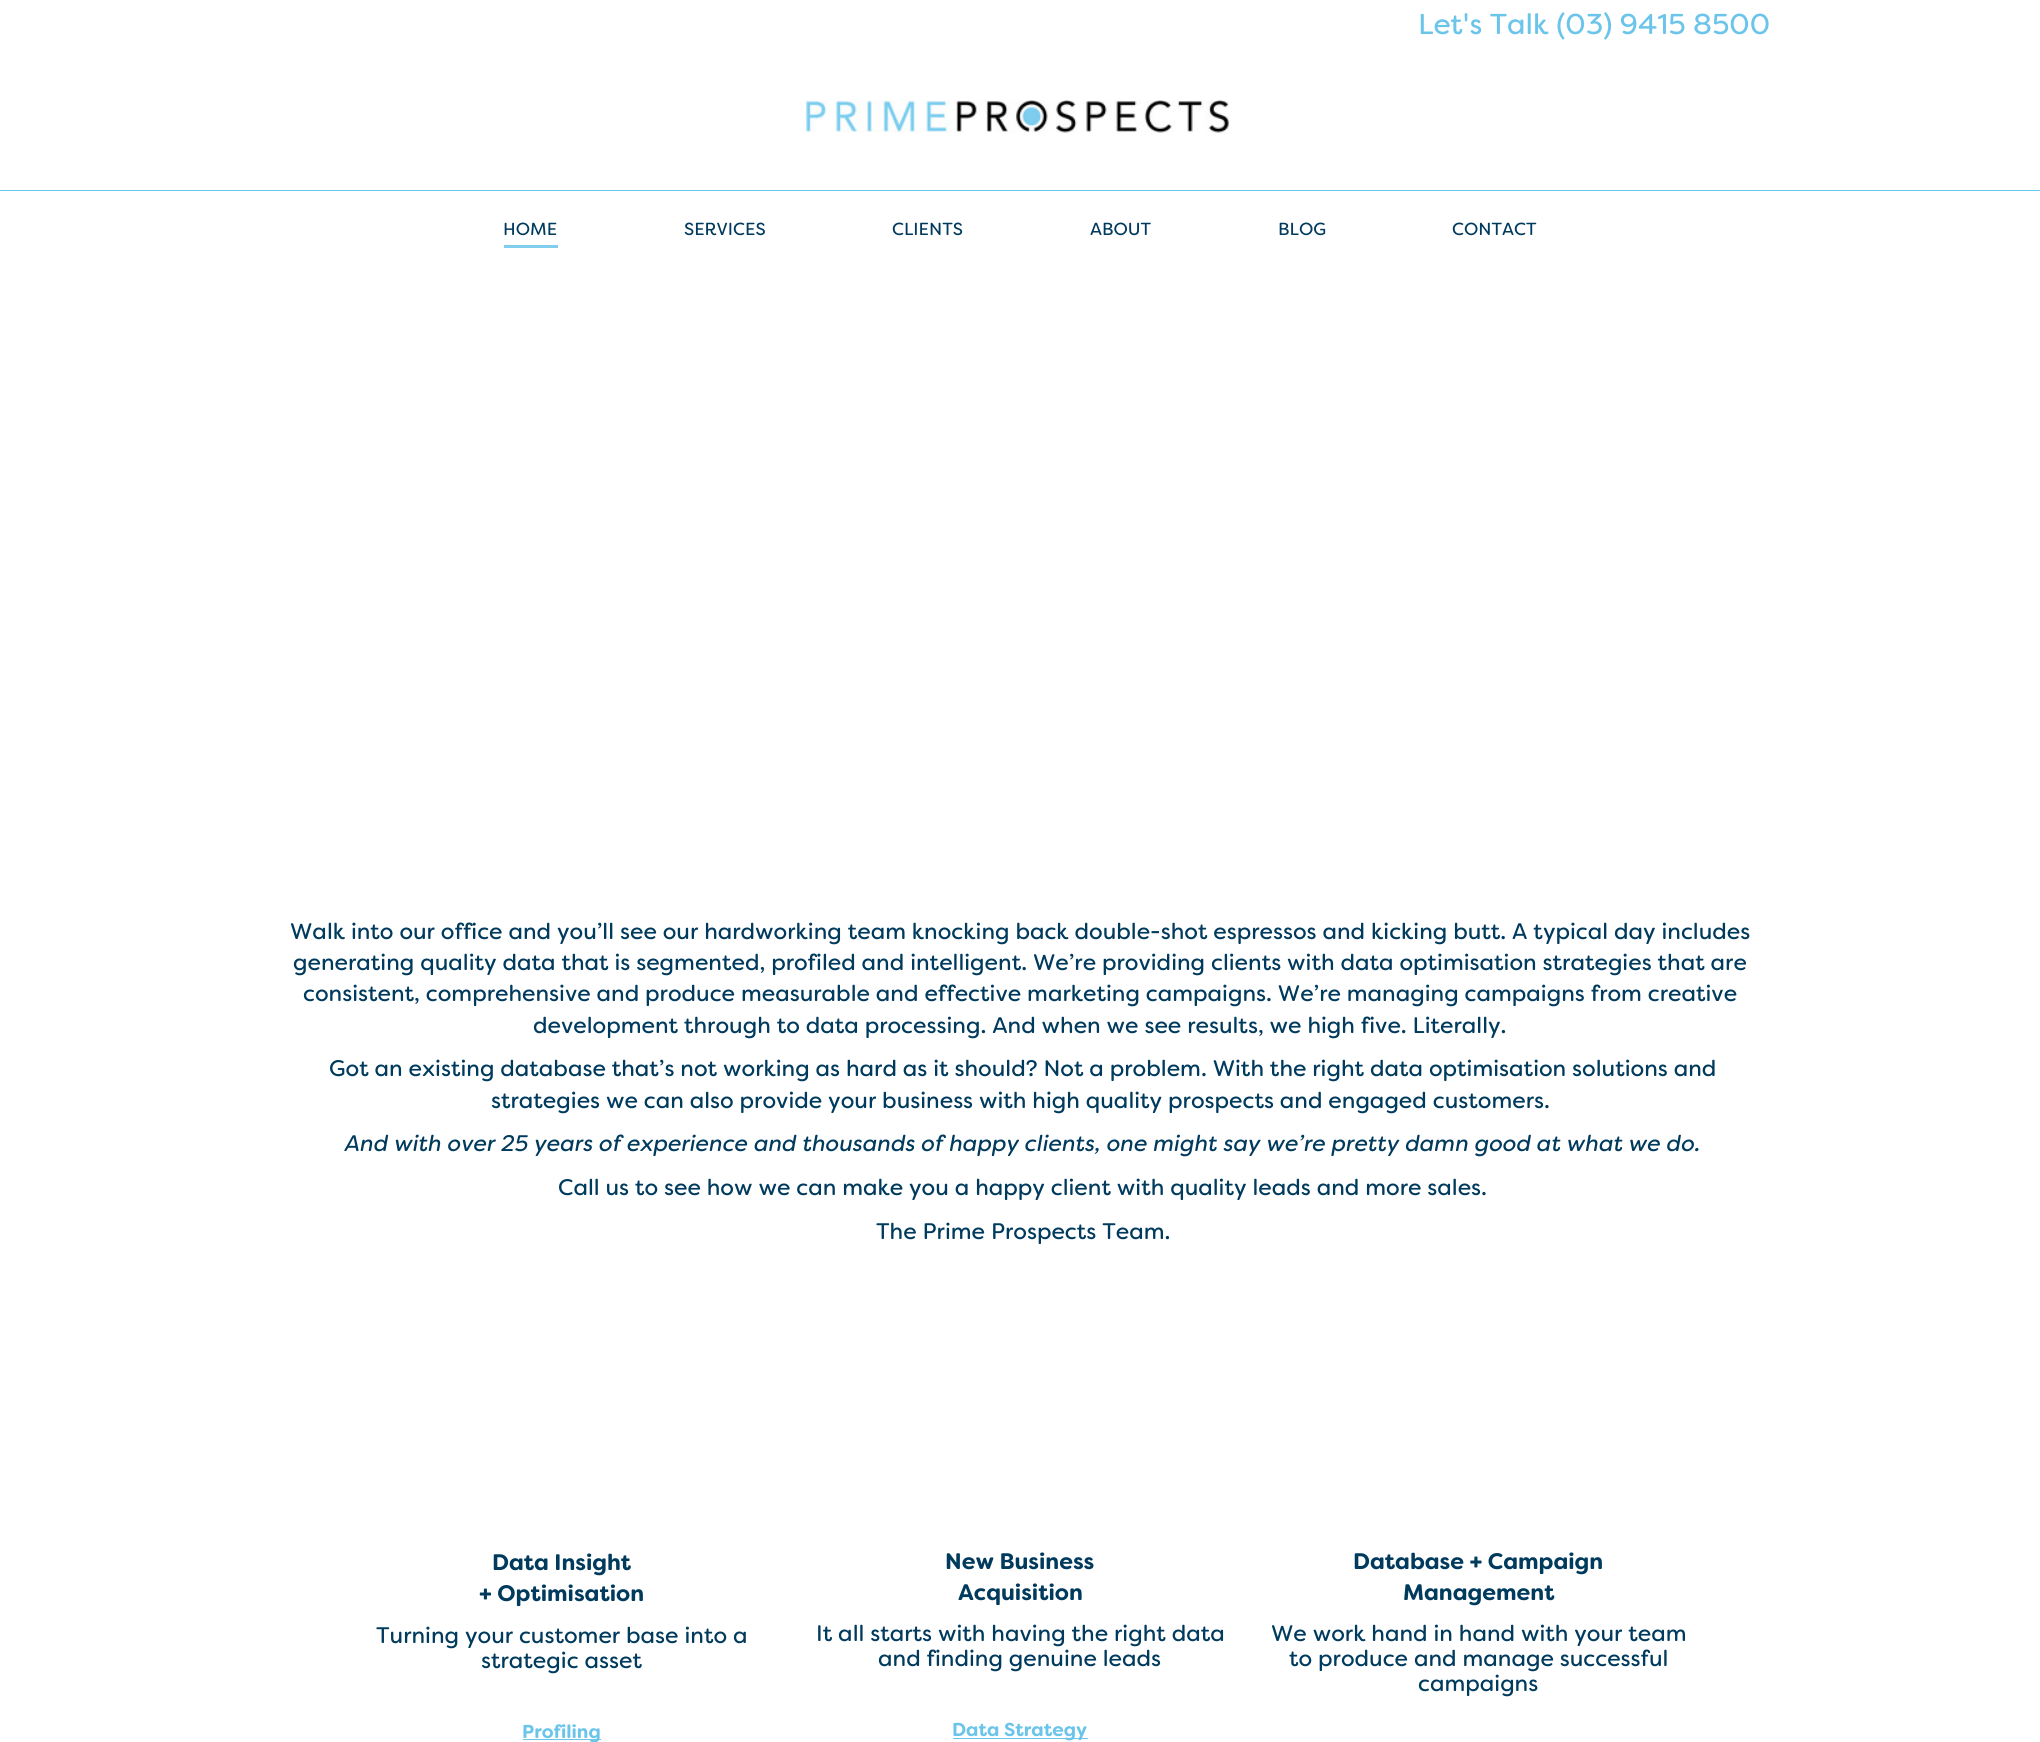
#include <cairo/cairo.h>
#include <math.h>
#include <stddef.h>

static cairo_t *cr;

static void use_color(int r, int g, int b) {
  cairo_set_source_rgb(cr, r / 255.0, g / 255.0, b / 255.0);
}

static void text(double x, double y, const char *s, const char *family, double size, int italic, int bold, int r, int g, int b) {
  cairo_select_font_face(cr, family, italic ? CAIRO_FONT_SLANT_ITALIC : CAIRO_FONT_SLANT_NORMAL,
    bold ? CAIRO_FONT_WEIGHT_BOLD : CAIRO_FONT_WEIGHT_NORMAL);
  cairo_set_font_size(cr, size);
  use_color(r, g, b);
  cairo_move_to(cr, x, y);
  cairo_show_text(cr, s);
}

static void box(double x, double y, double w, double h, int r, int g, int b) {
  use_color(r, g, b);
  cairo_rectangle(cr, x, y, w, h);
  cairo_fill(cr);
}

static void picture(const char *path, double x, double y, double w, double h) {
  cairo_surface_t *image = cairo_image_surface_create_from_png(path);
  cairo_save(cr);
  cairo_set_source_surface(cr, image, x, y);
  cairo_rectangle(cr, x, y, w, h);
  cairo_fill(cr);
  cairo_restore(cr);
  cairo_surface_destroy(image);
}

static void draw(void) {
  use_color(255, 255, 255);
  cairo_paint(cr);
  picture("img_01.png", 805, 100, 425, 33);
  box(0, 190, 2040, 1, 107, 196, 234);
  box(504, 245, 54, 3, 129, 205, 237);
  box(523, 1739, 78, 1, 107, 196, 234);
  box(953, 1738, 135, 1, 107, 196, 234);
  text(1418, 34, "Let's Talk (03) 9415 8500", "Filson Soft", 28.75, 0, 0, 107, 196, 234);
  text(503, 235, "HOME", "Filson Soft", 17.5, 0, 0, 0, 58, 93);
  text(684, 235, "SERVICES", "Filson Soft", 17.5, 0, 0, 0, 58, 93);
  text(892, 235, "CLIENTS", "Filson Soft", 17.5, 0, 0, 0, 58, 93);
  text(1090, 235, "ABOUT", "Filson Soft", 17.5, 0, 0, 0, 58, 93);
  text(1278, 235, "BLOG", "Filson Soft", 17.5, 0, 0, 0, 58, 93);
  text(1452, 235, "CONTACT", "Filson Soft", 17.5, 0, 0, 0, 58, 93);
  text(290, 939, "Walk into our office and you’ll see our hardworking team knocking back double-shot espressos and kicking butt. A typical day includes", "Filson Soft", 22.5, 0, 0, 0, 58, 93);
  text(293, 970, "generating quality data that is segmented, profiled and intelligent. We’re providing clients with data optimisation strategies that are", "Filson Soft", 22.5, 0, 0, 0, 58, 93);
  text(303, 1001, "consistent, comprehensive and produce measurable and effective marketing campaigns. We’re managing campaigns from creative", "Filson Soft", 22.5, 0, 0, 0, 58, 93);
  text(533, 1033, "development through to data processing. And when we see results, we high five. Literally.", "Filson Soft", 22.5, 0, 0, 0, 58, 93);
  text(329, 1076, "Got an existing database that’s not working as hard as it should? Not a problem. With the right data optimisation solutions and", "Filson Soft", 22.5, 0, 0, 0, 58, 93);
  text(491, 1108, "strategies we can also provide your business with high quality prospects and engaged customers.", "Filson Soft", 22.5, 0, 0, 0, 58, 93);
  text(345, 1151, "And with over 25 years of experience and thousands of happy clients, one might say we’re pretty damn good at what we do.", "Filson Soft", 22.5, 1, 0, 0, 58, 93);
  text(558, 1195, "Call us to see how we can make you a happy client with quality leads and more sales.", "Filson Soft", 22.5, 0, 0, 0, 58, 93);
  text(876, 1239, "The Prime Prospects Team.", "Filson Soft", 22.5, 0, 0, 0, 58, 93);
  text(492, 1570, "Data Insight", "Filson Soft", 22.5, 0, 1, 0, 58, 93);
  text(479, 1601, "+ Optimisation", "Filson Soft", 22.5, 0, 1, 0, 58, 93);
  text(376, 1643, "Turning your customer base into a", "Filson Soft", 22.5, 0, 0, 0, 58, 93);
  text(481, 1668, "strategic asset", "Filson Soft", 22.5, 0, 0, 0, 58, 93);
  text(522, 1738, "Profiling", "Filson Soft", 18.75, 0, 1, 107, 196, 234);
  text(945, 1569, "New Business", "Filson Soft", 22.5, 0, 1, 0, 58, 93);
  text(958, 1600, "Acquisition", "Filson Soft", 22.5, 0, 1, 0, 58, 93);
  text(816, 1641, "It all starts with having the right data", "Filson Soft", 22.5, 0, 0, 0, 58, 93);
  text(878, 1666, "and finding genuine leads", "Filson Soft", 22.5, 0, 0, 0, 58, 93);
  text(952, 1736, "Data Strategy", "Filson Soft", 18.75, 0, 1, 107, 196, 234);
  text(1353, 1569, "Database + Campaign", "Filson Soft", 22.5, 0, 1, 0, 58, 93);
  text(1403, 1600, "Management", "Filson Soft", 22.5, 0, 1, 0, 58, 93);
  text(1271, 1641, "We work hand in hand with your team", "Filson Soft", 22.5, 0, 0, 0, 58, 93);
  text(1289, 1666, "to produce and manage successful", "Filson Soft", 22.5, 0, 0, 0, 58, 93);
  text(1418, 1691, "campaigns", "Filson Soft", 22.5, 0, 0, 0, 58, 93);
}

int main(void) {
  cairo_surface_t *surface = cairo_image_surface_create(CAIRO_FORMAT_RGB24, 2040, 1742);
  cr = cairo_create(surface);
  cairo_font_options_t *options = cairo_font_options_create();
  cairo_font_options_set_hint_metrics(options, CAIRO_HINT_METRICS_OFF);
  cairo_font_options_set_hint_style(options, CAIRO_HINT_STYLE_NONE);
  cairo_set_font_options(cr, options);
  cairo_set_miter_limit(cr, 4);
  draw();
  cairo_surface_write_to_png(surface, "out.png");
  cairo_font_options_destroy(options);
  cairo_destroy(cr);
  cairo_surface_destroy(surface);
  return 0;
}
